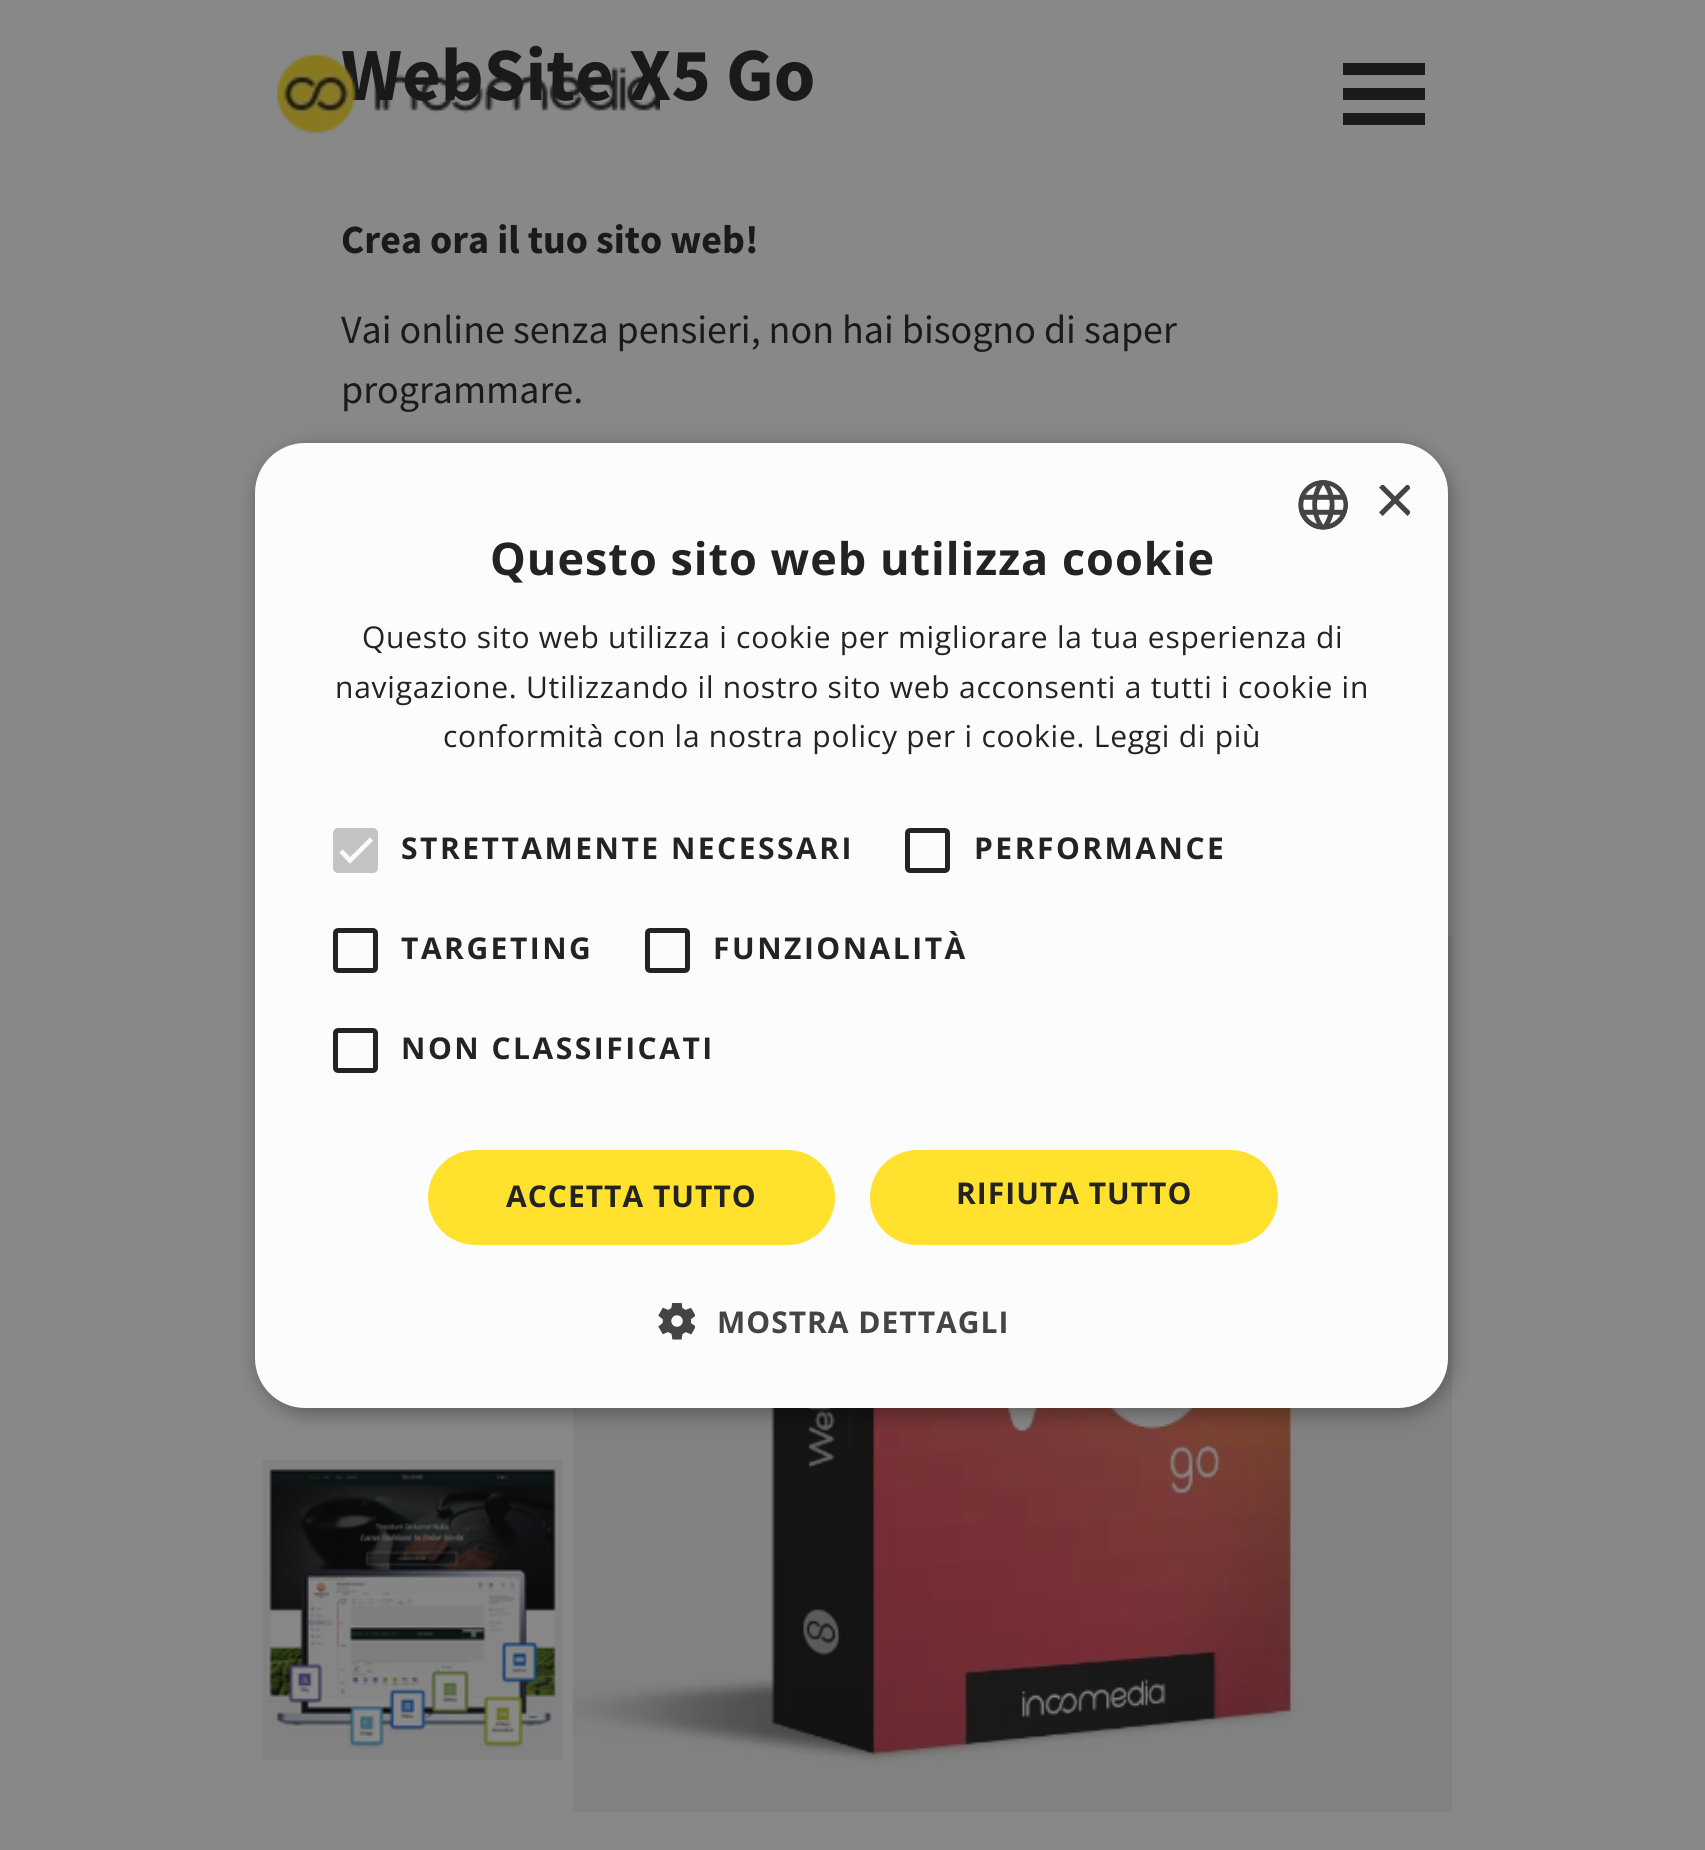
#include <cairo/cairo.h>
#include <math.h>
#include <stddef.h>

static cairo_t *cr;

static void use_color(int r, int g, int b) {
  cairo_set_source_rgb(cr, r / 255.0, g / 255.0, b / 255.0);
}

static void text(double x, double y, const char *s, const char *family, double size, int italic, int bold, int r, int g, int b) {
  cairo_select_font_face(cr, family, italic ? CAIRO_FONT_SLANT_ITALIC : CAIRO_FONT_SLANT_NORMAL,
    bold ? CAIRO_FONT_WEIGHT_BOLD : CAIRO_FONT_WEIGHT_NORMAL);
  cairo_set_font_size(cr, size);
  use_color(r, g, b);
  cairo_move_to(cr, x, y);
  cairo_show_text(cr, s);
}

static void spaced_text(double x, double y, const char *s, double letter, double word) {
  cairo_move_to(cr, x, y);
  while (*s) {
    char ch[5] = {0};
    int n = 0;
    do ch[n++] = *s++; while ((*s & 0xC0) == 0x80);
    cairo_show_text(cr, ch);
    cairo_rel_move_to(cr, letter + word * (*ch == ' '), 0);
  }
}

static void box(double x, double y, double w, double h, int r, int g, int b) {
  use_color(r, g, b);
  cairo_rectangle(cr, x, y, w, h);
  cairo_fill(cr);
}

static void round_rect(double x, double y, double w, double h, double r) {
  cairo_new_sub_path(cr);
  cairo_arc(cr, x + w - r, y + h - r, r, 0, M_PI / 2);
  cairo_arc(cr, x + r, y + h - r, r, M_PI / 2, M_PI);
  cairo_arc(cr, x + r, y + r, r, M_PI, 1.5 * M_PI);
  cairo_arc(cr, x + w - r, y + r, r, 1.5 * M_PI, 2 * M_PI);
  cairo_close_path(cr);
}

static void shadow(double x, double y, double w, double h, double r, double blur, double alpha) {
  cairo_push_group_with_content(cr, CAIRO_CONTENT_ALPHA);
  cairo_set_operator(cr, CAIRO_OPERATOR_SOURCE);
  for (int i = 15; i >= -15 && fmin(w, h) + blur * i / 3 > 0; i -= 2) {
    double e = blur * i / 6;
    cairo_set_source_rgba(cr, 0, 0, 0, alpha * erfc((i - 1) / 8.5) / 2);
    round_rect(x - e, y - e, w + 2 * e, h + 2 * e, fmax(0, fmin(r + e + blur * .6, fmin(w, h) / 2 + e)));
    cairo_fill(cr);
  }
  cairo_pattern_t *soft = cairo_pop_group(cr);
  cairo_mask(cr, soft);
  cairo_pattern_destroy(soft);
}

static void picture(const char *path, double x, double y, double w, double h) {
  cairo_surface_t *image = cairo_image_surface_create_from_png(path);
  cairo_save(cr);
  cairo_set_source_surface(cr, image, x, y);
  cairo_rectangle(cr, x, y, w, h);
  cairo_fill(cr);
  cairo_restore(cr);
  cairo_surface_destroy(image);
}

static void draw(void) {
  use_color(136, 136, 136);
  cairo_paint(cr);
  picture("img_01.png", 262, 1459, 301, 302);
  picture("img_02.png", 572, 935, 880, 878);
  box(1343, 63, 82, 12, 26, 26, 26);
  box(1343, 88, 82, 12, 26, 26, 26);
  box(1343, 113, 82, 12, 26, 26, 26);
  use_color(0, 0, 0);
  shadow(258, 448, 1192, 965, 50, 10, 0.35);
  use_color(252, 252, 252);
  round_rect(255, 443, 1193, 965, 50);
  cairo_fill(cr);
  picture("img_04.png", 1298, 480, 50, 50);
  use_color(196, 196, 196);
  round_rect(333, 828, 45, 45, 5);
  cairo_fill(cr);
  cairo_new_path(cr);
  cairo_move_to(cr, 341, 851);
  cairo_line_to(cr, 350, 860.5);
  cairo_line_to(cr, 371.5, 839);
  use_color(252, 252, 252);
  cairo_set_line_width(cr, 4.6);
  cairo_stroke(cr);
  round_rect(907.5, 830.5, 40, 40, 2.5);
  use_color(35, 35, 35);
  cairo_set_line_width(cr, 5);
  cairo_stroke(cr);
  round_rect(335.5, 930.5, 40, 40, 2.5);
  cairo_stroke(cr);
  round_rect(647.5, 930.5, 40, 40, 2.5);
  cairo_stroke(cr);
  round_rect(335.5, 1030.5, 40, 40, 2.5);
  cairo_stroke(cr);
  use_color(255, 225, 46);
  round_rect(428, 1150, 407, 95, 47.5);
  cairo_fill(cr);
  round_rect(870, 1150, 408, 95, 47.5);
  cairo_fill(cr);
  picture("img_05.png", 658, 1303, 37, 37);
  text(341, 100, "WebSite X5 Go", "Source Sans Pro", 75, 0, 1, 26, 26, 26);
  text(341, 253, "Crea ora il tuo sito web!", "Source Sans Pro", 40, 0, 1, 26, 26, 26);
  text(341, 343, "Vai online senza pensieri, non hai bisogno di saper", "Source Sans Pro", 40, 0, 0, 26, 26, 26);
  text(341, 403, "programmare.", "Source Sans Pro", 40, 0, 0, 26, 26, 26);
  picture("img_03.png", 277, 54, 383, 80);
  cairo_save(cr);
  cairo_rectangle(cr, 1373, 485, 37, 38);
  cairo_clip(cr);
  text(1374, 524, "×", "Liberation Sans", 72, 0, 0, 68, 68, 68);
  cairo_restore(cr);
  cairo_select_font_face(cr, "Open Sans", CAIRO_FONT_SLANT_NORMAL, CAIRO_FONT_WEIGHT_BOLD);
  cairo_set_font_size(cr, 45);
  use_color(35, 35, 35);
  spaced_text(490, 575, "Questo sito web utilizza cookie", 1, 0);
  cairo_select_font_face(cr, "Open Sans", CAIRO_FONT_SLANT_NORMAL, CAIRO_FONT_WEIGHT_NORMAL);
  cairo_set_font_size(cr, 30);
  spaced_text(362, 648, "Questo sito web utilizza i cookie per migliorare la tua esperienza di", 0.75, 0);
  spaced_text(335, 698, "navigazione. Utilizzando il nostro sito web acconsenti a tutti i cookie in", 0.75, 0);
  spaced_text(443, 747, "conformità con la nostra policy per i cookie. Leggi di più", 0.75, 0);
  cairo_select_font_face(cr, "Open Sans", CAIRO_FONT_SLANT_NORMAL, CAIRO_FONT_WEIGHT_BOLD);
  spaced_text(401, 859, "STRETTAMENTE NECESSARI", 2.5, 0);
  spaced_text(974, 859, "PERFORMANCE", 2.5, 0);
  spaced_text(401, 959, "TARGETING", 2.5, 0);
  spaced_text(713, 959, "FUNZIONALITÀ", 2.5, 0);
  spaced_text(401, 1059, "NON CLASSIFICATI", 2.5, 0);
  spaced_text(506, 1207, "ACCETTA TUTTO", 1, 0);
  spaced_text(956, 1204, "RIFIUTA TUTTO", 1, 0);
  use_color(68, 68, 68);
  spaced_text(717, 1333, "MOSTRA DETTAGLI", 1, 0);
}

int main(void) {
  cairo_surface_t *surface = cairo_image_surface_create(CAIRO_FORMAT_RGB24, 1705, 1850);
  cr = cairo_create(surface);
  cairo_font_options_t *options = cairo_font_options_create();
  cairo_font_options_set_hint_metrics(options, CAIRO_HINT_METRICS_OFF);
  cairo_font_options_set_hint_style(options, CAIRO_HINT_STYLE_NONE);
  cairo_set_font_options(cr, options);
  cairo_set_miter_limit(cr, 4);
  draw();
  cairo_surface_write_to_png(surface, "out.png");
  cairo_font_options_destroy(options);
  cairo_destroy(cr);
  cairo_surface_destroy(surface);
  return 0;
}
